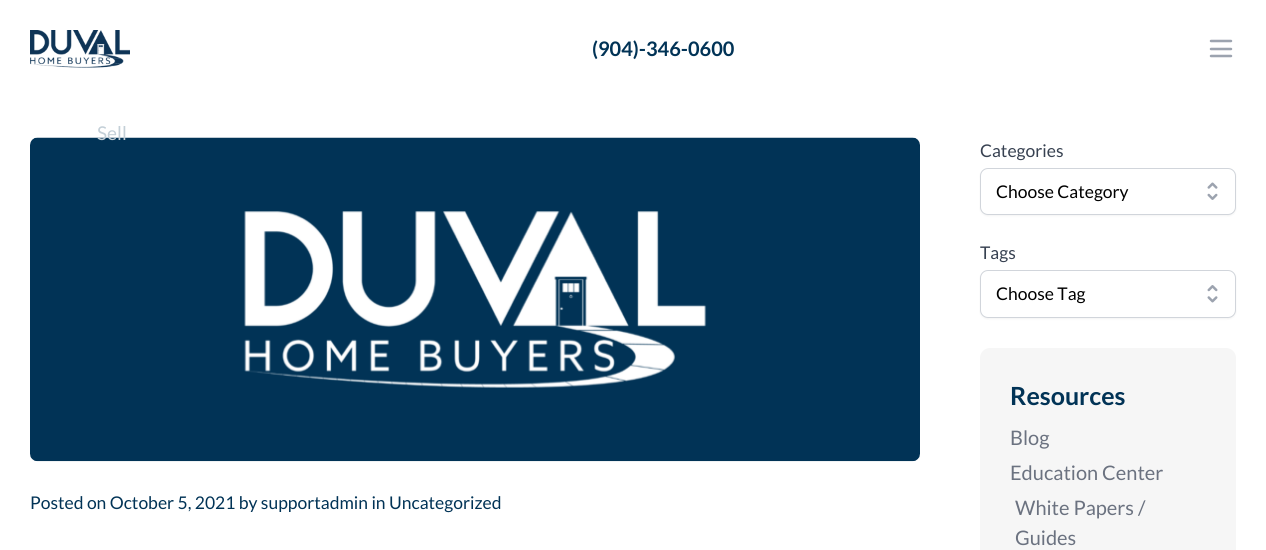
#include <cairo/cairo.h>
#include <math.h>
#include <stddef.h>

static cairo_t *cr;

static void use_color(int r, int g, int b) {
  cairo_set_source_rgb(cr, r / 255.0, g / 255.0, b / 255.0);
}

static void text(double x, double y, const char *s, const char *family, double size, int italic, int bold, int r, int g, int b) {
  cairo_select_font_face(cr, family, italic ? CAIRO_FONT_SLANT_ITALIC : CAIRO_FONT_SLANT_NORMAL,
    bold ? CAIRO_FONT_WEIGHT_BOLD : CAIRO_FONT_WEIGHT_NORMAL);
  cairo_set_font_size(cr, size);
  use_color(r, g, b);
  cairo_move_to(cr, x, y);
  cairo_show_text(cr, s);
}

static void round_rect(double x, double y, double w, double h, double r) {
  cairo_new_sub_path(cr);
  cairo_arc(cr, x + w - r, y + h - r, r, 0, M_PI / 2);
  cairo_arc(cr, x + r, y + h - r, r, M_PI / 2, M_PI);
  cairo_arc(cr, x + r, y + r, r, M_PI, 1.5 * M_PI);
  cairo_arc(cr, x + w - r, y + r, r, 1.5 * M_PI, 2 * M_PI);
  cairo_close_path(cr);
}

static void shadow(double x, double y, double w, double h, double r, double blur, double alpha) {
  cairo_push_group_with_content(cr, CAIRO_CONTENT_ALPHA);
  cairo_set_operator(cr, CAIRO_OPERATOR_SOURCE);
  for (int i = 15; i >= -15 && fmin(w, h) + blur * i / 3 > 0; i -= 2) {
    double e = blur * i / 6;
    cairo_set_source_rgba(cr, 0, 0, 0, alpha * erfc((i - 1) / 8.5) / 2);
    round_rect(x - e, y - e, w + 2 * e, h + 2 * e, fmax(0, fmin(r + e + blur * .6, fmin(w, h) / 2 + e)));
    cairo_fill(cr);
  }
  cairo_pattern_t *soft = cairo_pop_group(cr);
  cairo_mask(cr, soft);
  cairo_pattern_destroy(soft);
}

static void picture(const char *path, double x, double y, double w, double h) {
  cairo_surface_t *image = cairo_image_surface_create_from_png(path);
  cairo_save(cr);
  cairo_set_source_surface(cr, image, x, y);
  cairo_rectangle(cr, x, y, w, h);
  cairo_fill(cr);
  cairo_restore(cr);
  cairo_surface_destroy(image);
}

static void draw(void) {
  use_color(255, 255, 255);
  cairo_paint(cr);
  picture("img_01.png", 30, 30, 100, 38);
  cairo_new_path(cr);
  cairo_move_to(cr, 1211, 41);
  cairo_line_to(cr, 1231, 41);
  cairo_move_to(cr, 1211, 49);
  cairo_line_to(cr, 1231, 49);
  cairo_move_to(cr, 1211, 56);
  cairo_line_to(cr, 1231, 56);
  use_color(156, 163, 175);
  cairo_set_line_width(cr, 2.5);
  cairo_set_line_cap(cr, CAIRO_LINE_CAP_ROUND);
  cairo_set_line_join(cr, CAIRO_LINE_JOIN_ROUND);
  cairo_stroke(cr);
  picture("img_02.png", 30, 137, 890, 325);
  use_color(0, 0, 0);
  shadow(980, 169, 256, 47, 8, 1, 0.05);
  use_color(255, 255, 255);
  round_rect(980.5, 168.5, 255, 46, 7.5);
  cairo_fill_preserve(cr);
  use_color(209, 213, 219);
  cairo_set_line_width(cr, 1);
  cairo_set_line_cap(cr, CAIRO_LINE_CAP_BUTT);
  cairo_set_line_join(cr, CAIRO_LINE_JOIN_MITER);
  cairo_stroke(cr);
  picture("img_03.png", 1207, 182, 11, 18);
  use_color(0, 0, 0);
  shadow(980, 271, 256, 48, 8, 1, 0.05);
  use_color(255, 255, 255);
  round_rect(980.5, 270.5, 255, 47, 7.5);
  cairo_fill_preserve(cr);
  use_color(209, 213, 219);
  cairo_stroke(cr);
  picture("img_04.png", 1207, 285, 11, 18);
  use_color(246, 246, 246);
  round_rect(980, 348, 256, 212, 10);
  cairo_fill(cr);
  text(592, 56, "(904)-346-0600", "Lato", 20, 0, 1, 1, 51, 86);
  text(97, 140, "Sell", "Lato", 19, 0, 0, 195, 207, 215);
  text(30, 509, "Posted on October 5, 2021 by supportadmin in Uncategorized", "Lato", 17.5, 0, 0, 1, 51, 86);
  text(980, 157, "Categories", "Lato", 17.5, 0, 0, 55, 65, 81);
  text(996, 198, "Choose Category", "Lato", 17.5, 0, 0, 0, 0, 0);
  text(980, 259, "Tags", "Lato", 17.5, 0, 0, 55, 65, 81);
  text(996, 300, "Choose Tag", "Lato", 17.5, 0, 0, 0, 0, 0);
  text(1010, 405, "Resources", "Lato", 25, 0, 1, 1, 51, 86);
  text(1010, 445, "Blog", "Lato", 20, 0, 0, 107, 114, 128);
  text(1010, 480, "Education Center", "Lato", 20, 0, 0, 107, 114, 128);
  text(1015, 515, "White Papers /", "Lato", 20, 0, 0, 107, 114, 128);
  text(1015, 545, "Guides", "Lato", 20, 0, 0, 107, 114, 128);
}

int main(void) {
  cairo_surface_t *surface = cairo_image_surface_create(CAIRO_FORMAT_RGB24, 1266, 550);
  cr = cairo_create(surface);
  cairo_font_options_t *options = cairo_font_options_create();
  cairo_font_options_set_hint_metrics(options, CAIRO_HINT_METRICS_OFF);
  cairo_font_options_set_hint_style(options, CAIRO_HINT_STYLE_NONE);
  cairo_set_font_options(cr, options);
  cairo_set_miter_limit(cr, 4);
  draw();
  cairo_surface_write_to_png(surface, "out.png");
  cairo_font_options_destroy(options);
  cairo_destroy(cr);
  cairo_surface_destroy(surface);
  return 0;
}
